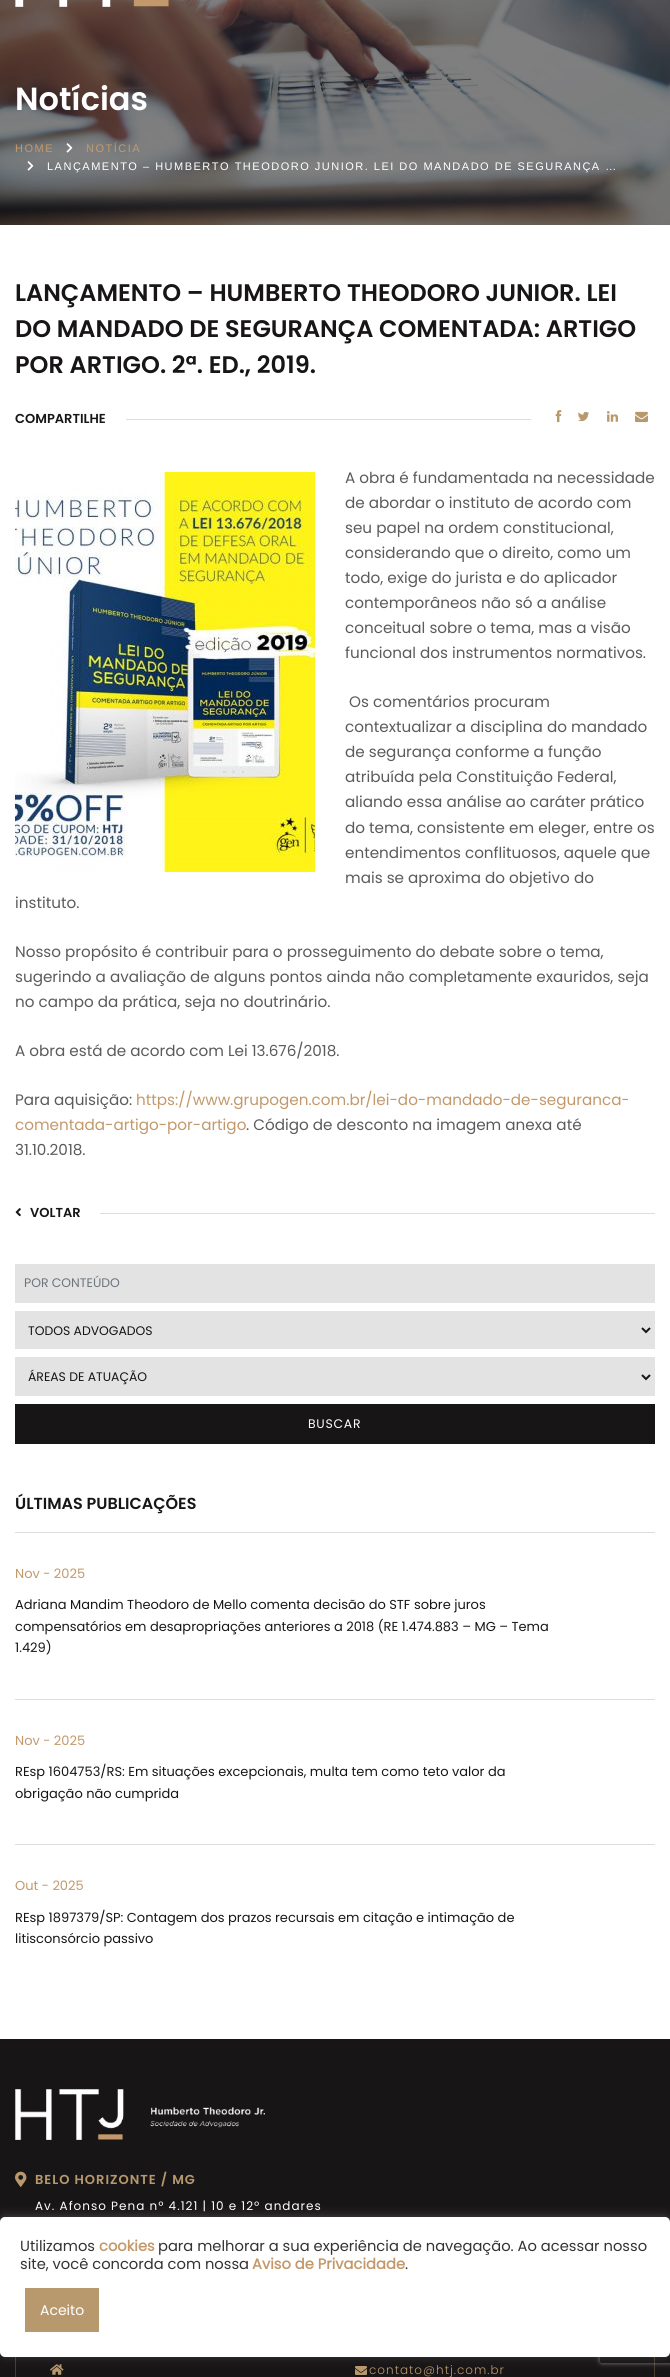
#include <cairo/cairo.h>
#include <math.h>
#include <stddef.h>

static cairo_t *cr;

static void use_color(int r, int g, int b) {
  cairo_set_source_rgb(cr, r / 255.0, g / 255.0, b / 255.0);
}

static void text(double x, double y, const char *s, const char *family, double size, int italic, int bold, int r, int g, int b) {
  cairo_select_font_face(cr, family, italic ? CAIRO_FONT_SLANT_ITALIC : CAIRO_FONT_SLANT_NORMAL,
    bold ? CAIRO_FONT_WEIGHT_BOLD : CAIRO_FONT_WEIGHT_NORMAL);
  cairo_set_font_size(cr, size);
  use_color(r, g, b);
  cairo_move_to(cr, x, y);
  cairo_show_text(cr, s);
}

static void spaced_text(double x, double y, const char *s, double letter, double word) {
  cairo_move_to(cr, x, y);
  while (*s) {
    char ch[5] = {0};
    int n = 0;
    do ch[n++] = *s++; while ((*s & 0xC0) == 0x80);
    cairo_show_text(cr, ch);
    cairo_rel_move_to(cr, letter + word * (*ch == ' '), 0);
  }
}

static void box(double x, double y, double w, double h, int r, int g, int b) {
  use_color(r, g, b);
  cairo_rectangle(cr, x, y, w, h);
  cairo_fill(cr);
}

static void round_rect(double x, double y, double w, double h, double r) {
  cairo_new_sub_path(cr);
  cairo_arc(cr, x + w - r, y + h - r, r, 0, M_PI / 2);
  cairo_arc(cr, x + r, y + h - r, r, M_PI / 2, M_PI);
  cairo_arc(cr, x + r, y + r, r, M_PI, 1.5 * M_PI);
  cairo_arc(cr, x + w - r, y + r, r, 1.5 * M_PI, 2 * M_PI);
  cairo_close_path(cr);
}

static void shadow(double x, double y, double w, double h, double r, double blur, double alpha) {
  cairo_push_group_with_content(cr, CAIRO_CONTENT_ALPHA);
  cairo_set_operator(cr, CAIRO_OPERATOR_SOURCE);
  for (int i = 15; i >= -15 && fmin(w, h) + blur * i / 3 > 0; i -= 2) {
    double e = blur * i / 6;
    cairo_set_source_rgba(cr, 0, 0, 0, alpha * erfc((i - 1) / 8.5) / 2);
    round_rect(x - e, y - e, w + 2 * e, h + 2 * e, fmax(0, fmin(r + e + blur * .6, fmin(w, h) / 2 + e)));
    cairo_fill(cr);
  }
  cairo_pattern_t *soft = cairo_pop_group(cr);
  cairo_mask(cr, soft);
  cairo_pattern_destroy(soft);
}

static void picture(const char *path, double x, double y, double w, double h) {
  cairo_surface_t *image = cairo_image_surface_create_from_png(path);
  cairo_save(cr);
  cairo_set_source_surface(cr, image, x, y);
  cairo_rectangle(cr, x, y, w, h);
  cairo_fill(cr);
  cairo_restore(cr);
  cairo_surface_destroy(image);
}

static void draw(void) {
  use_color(255, 255, 255);
  cairo_paint(cr);
  picture("img_02.png", 0, 0, 670, 225);
  picture("img_01.png", 15, 0, 154, 7);
  picture("img_03.png", 66, 143, 7, 10);
  picture("img_04.png", 27, 161, 7, 10);
  box(126, 419, 405, 1, 221, 221, 221);
  picture("img_05.png", 555, 410, 7, 13);
  picture("img_06.png", 578, 411, 11, 11);
  picture("img_07.png", 607, 411, 12, 11);
  picture("img_08.png", 635, 411, 13, 12);
  picture("img_09.png", 15, 472, 300, 400);
  picture("img_10.png", 15, 1208, 6, 9);
  box(100, 1213, 555, 1, 221, 221, 221);
  use_color(227, 227, 227);
  cairo_rectangle(cr, 15.5, 1264.5, 639, 38);
  cairo_fill_preserve(cr);
  cairo_set_line_width(cr, 1);
  cairo_stroke(cr);
  cairo_rectangle(cr, 15.5, 1311.5, 639, 37);
  cairo_fill_preserve(cr);
  cairo_stroke(cr);
  cairo_new_path(cr);
  cairo_move_to(cr, 642, 1328);
  cairo_line_to(cr, 646, 1332);
  cairo_line_to(cr, 650, 1328);
  use_color(24, 21, 23);
  cairo_set_line_width(cr, 2);
  cairo_stroke(cr);
  use_color(227, 227, 227);
  cairo_rectangle(cr, 15.5, 1357.5, 639, 38);
  cairo_fill_preserve(cr);
  cairo_set_line_width(cr, 1);
  cairo_stroke(cr);
  cairo_new_path(cr);
  cairo_move_to(cr, 642, 1375);
  cairo_line_to(cr, 646, 1379);
  cairo_line_to(cr, 650, 1375);
  use_color(24, 21, 23);
  cairo_set_line_width(cr, 2);
  cairo_stroke(cr);
  box(15, 1404, 640, 40, 24, 21, 23);
  box(15, 1532, 640, 1, 221, 221, 221);
  box(15, 1699, 640, 1, 221, 221, 221);
  box(15, 1844, 640, 1, 221, 221, 221);
  box(0, 2039, 670, 338, 24, 21, 23);
  picture("img_11.png", 15, 2089, 250, 51);
  picture("img_12.png", 15, 2171, 12, 16);
  cairo_rectangle(cr, 15.5, 2334.5, 639, 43);
  use_color(72, 61, 49);
  cairo_set_line_width(cr, 1);
  cairo_stroke(cr);
  picture("img_13.png", 50, 2364, 14, 11);
  picture("img_14.png", 355, 2366, 12, 9);
  use_color(172, 171, 171);
  shadow(0, 2216, 670, 140, 5, 5, 0.3);
  cairo_save(cr);
  cairo_set_fill_rule(cr, CAIRO_FILL_RULE_EVEN_ODD);
  cairo_new_path(cr);
  cairo_move_to(cr, 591, 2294);
  cairo_line_to(cr, 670, 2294);
  cairo_line_to(cr, 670, 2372);
  cairo_line_to(cr, 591, 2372);
  cairo_close_path(cr);
  cairo_move_to(cr, 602, 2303);
  cairo_line_to(cr, 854, 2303);
  cairo_curve_to(cr, 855, 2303, 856, 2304, 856, 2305);
  cairo_line_to(cr, 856, 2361);
  cairo_curve_to(cr, 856, 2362, 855, 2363, 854, 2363);
  cairo_line_to(cr, 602, 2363);
  cairo_curve_to(cr, 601, 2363, 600, 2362, 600, 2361);
  cairo_line_to(cr, 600, 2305);
  cairo_curve_to(cr, 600, 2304, 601, 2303, 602, 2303);
  cairo_close_path(cr);
  cairo_clip(cr);
  use_color(128, 128, 128);
  shadow(600, 2303, 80, 60, 2, 2.5, 1);
  cairo_restore(cr);
  use_color(255, 255, 255);
  round_rect(0, 2217, 670, 140, 5);
  cairo_fill(cr);
  box(25, 2288, 74, 44, 184, 153, 110);
  text(15, 110, "Notícias", "Poppins SemiBold", 32, 0, 0, 255, 255, 255);
  cairo_select_font_face(cr, "Liberation Sans", CAIRO_FONT_SLANT_NORMAL, CAIRO_FONT_WEIGHT_NORMAL);
  cairo_set_font_size(cr, 11);
  use_color(195, 153, 107);
  spaced_text(15, 152, "HOME", 1.5, 0);
  spaced_text(86, 152, "NOTÍCIA", 1.5, 0);
  use_color(255, 255, 255);
  spaced_text(47, 170, "LANÇAMENTO – HUMBERTO THEODORO JUNIOR. LEI DO MANDADO DE SEGURANÇA …", 1.5, 0);
  text(15, 301, "LANÇAMENTO – HUMBERTO THEODORO JUNIOR. LEI", "Poppins SemiBold", 24, 0, 0, 24, 21, 23);
  text(15, 337, "DO MANDADO DE SEGURANÇA COMENTADA: ARTIGO", "Poppins SemiBold", 24, 0, 0, 24, 21, 23);
  text(15, 373, "POR ARTIGO. 2ª. ED., 2019.", "Poppins SemiBold", 24, 0, 0, 24, 21, 23);
  text(15, 423, "COMPARTILHE", "Poppins SemiBold", 13, 0, 0, 24, 21, 23);
  text(345, 483, "A obra é fundamentada na necessidade", "Poppins", 15.2, 0, 0, 91, 91, 91);
  text(345, 508, "de abordar o instituto de acordo com", "Poppins", 15.2, 0, 0, 91, 91, 91);
  text(345, 533, "seu papel na ordem constitucional,", "Poppins", 15.2, 0, 0, 91, 91, 91);
  text(345, 558, "considerando que o direito, como um", "Poppins", 15.2, 0, 0, 91, 91, 91);
  text(345, 583, "todo, exige do jurista e do aplicador", "Poppins", 15.2, 0, 0, 91, 91, 91);
  text(345, 608, "contemporâneos não só a análise", "Poppins", 15.2, 0, 0, 91, 91, 91);
  text(345, 633, "conceitual sobre o tema, mas a visão", "Poppins", 15.2, 0, 0, 91, 91, 91);
  text(345, 658, "funcional dos instrumentos normativos.", "Poppins", 15.2, 0, 0, 91, 91, 91);
  text(349, 707, "Os comentários procuram", "Poppins", 15.2, 0, 0, 91, 91, 91);
  text(345, 732, "contextualizar a disciplina do mandado", "Poppins", 15.2, 0, 0, 91, 91, 91);
  text(345, 757, "de segurança conforme a função", "Poppins", 15.2, 0, 0, 91, 91, 91);
  text(345, 782, "atribuída pela Constituição Federal,", "Poppins", 15.2, 0, 0, 91, 91, 91);
  text(345, 807, "aliando essa análise ao caráter prático", "Poppins", 15.2, 0, 0, 91, 91, 91);
  text(345, 833, "do tema, consistente em eleger, entre os", "Poppins", 15.2, 0, 0, 91, 91, 91);
  text(345, 858, "entendimentos conflituosos, aquele que", "Poppins", 15.2, 0, 0, 91, 91, 91);
  text(345, 883, "mais se aproxima do objetivo do", "Poppins", 15.2, 0, 0, 91, 91, 91);
  text(15, 908, "instituto.", "Poppins", 15.2, 0, 0, 91, 91, 91);
  text(15, 957, "Nosso propósito é contribuir para o prosseguimento do debate sobre o tema,", "Poppins", 15.2, 0, 0, 91, 91, 91);
  text(15, 982, "sugerindo a avaliação de alguns pontos ainda não completamente exauridos, seja", "Poppins", 15.2, 0, 0, 91, 91, 91);
  text(15, 1007, "no campo da prática, seja no doutrinário.", "Poppins", 15.2, 0, 0, 91, 91, 91);
  text(15, 1056, "A obra está de acordo com Lei 13.676/2018.", "Poppins", 15.2, 0, 0, 91, 91, 91);
  text(15, 1105, "Para aquisição:", "Poppins", 15.2, 0, 0, 91, 91, 91);
  text(136, 1105, "https://www.grupogen.com.br/lei-do-mandado-de-seguranca-", "Poppins", 15.2, 0, 0, 195, 153, 107);
  text(15, 1130, "comentada-artigo-por-artigo", "Poppins", 15.2, 0, 0, 195, 153, 107);
  text(246, 1130, ". Código de desconto na imagem anexa até", "Poppins", 15.2, 0, 0, 91, 91, 91);
  text(15, 1155, "31.10.2018.", "Poppins", 15.2, 0, 0, 91, 91, 91);
  text(30, 1217, "VOLTAR", "Poppins SemiBold", 13, 0, 0, 24, 21, 23);
  text(24, 1287, "POR CONTEÚDO", "Poppins", 12.4, 0, 0, 108, 117, 125);
  text(28, 1335, "TODOS ADVOGADOS", "Poppins", 12.4, 0, 0, 24, 21, 23);
  text(28, 1381, "ÁREAS DE ATUAÇÃO", "Poppins", 12.4, 0, 0, 24, 21, 23);
  use_color(255, 255, 255);
  spaced_text(308, 1428, "BUSCAR", 0.75, 0);
  text(15, 1509, "ÚLTIMAS PUBLICAÇÕES", "Poppins SemiBold", 16, 0, 0, 24, 21, 23);
  text(15, 1578, "Nov - 2025", "Poppins", 13, 0, 0, 195, 153, 107);
  text(15, 1609, "Adriana Mandim Theodoro de Mello comenta decisão do STF sobre juros", "Poppins", 13, 0, 0, 24, 21, 23);
  text(15, 1631, "compensatórios em desapropriações anteriores a 2018 (RE 1.474.883 – MG – Tema", "Poppins", 13, 0, 0, 24, 21, 23);
  text(15, 1652, "1.429)", "Poppins", 13, 0, 0, 24, 21, 23);
  text(15, 1745, "Nov - 2025", "Poppins", 13, 0, 0, 195, 153, 107);
  text(15, 1776, "REsp 1604753/RS: Em situações excepcionais, multa tem como teto valor da", "Poppins", 13, 0, 0, 24, 21, 23);
  text(15, 1798, "obrigação não cumprida", "Poppins", 13, 0, 0, 24, 21, 23);
  text(15, 1890, "Out - 2025", "Poppins", 13, 0, 0, 195, 153, 107);
  text(15, 1922, "REsp 1897379/SP: Contagem dos prazos recursais em citação e intimação de", "Poppins", 13, 0, 0, 24, 21, 23);
  text(15, 1943, "litisconsórcio passivo", "Poppins", 13, 0, 0, 24, 21, 23);
  cairo_select_font_face(cr, "Poppins SemiBold", CAIRO_FONT_SLANT_NORMAL, CAIRO_FONT_WEIGHT_NORMAL);
  use_color(184, 153, 110);
  spaced_text(35, 2184, "BELO HORIZONTE / MG", 1, 0);
  cairo_select_font_face(cr, "Poppins", CAIRO_FONT_SLANT_NORMAL, CAIRO_FONT_WEIGHT_NORMAL);
  cairo_set_font_size(cr, 12);
  use_color(255, 255, 255);
  spaced_text(35, 2210, "Av. Afonso Pena nº 4.121 | 10 e 12º andares", 1, 0);
  cairo_select_font_face(cr, "Poppins Light", CAIRO_FONT_SLANT_NORMAL, CAIRO_FONT_WEIGHT_NORMAL);
  use_color(184, 153, 110);
  spaced_text(369, 2374, "contato@htj.com.br", 1, 0);
  text(20, 2251, "Utilizamos", "Poppins", 14.7, 0, 0, 51, 51, 51);
  text(99, 2251, "cookies", "Poppins", 14.7, 0, 1, 195, 153, 107);
  text(158, 2251, "para melhorar a sua experiência de navegação. Ao acessar nosso", "Poppins", 14.7, 0, 0, 51, 51, 51);
  text(20, 2269, "site, você concorda com nossa", "Poppins", 14.7, 0, 0, 51, 51, 51);
  text(252, 2269, "Aviso de Privacidade", "Poppins", 14.7, 0, 1, 195, 153, 107);
  text(405, 2269, ".", "Poppins", 14.7, 0, 0, 51, 51, 51);
  text(40, 2315, "Aceito", "Poppins", 14, 0, 0, 255, 255, 255);
}

int main(void) {
  cairo_surface_t *surface = cairo_image_surface_create(CAIRO_FORMAT_RGB24, 670, 2377);
  cr = cairo_create(surface);
  cairo_font_options_t *options = cairo_font_options_create();
  cairo_font_options_set_hint_metrics(options, CAIRO_HINT_METRICS_OFF);
  cairo_font_options_set_hint_style(options, CAIRO_HINT_STYLE_NONE);
  cairo_set_font_options(cr, options);
  cairo_set_miter_limit(cr, 4);
  draw();
  cairo_surface_write_to_png(surface, "out.png");
  cairo_font_options_destroy(options);
  cairo_destroy(cr);
  cairo_surface_destroy(surface);
  return 0;
}
